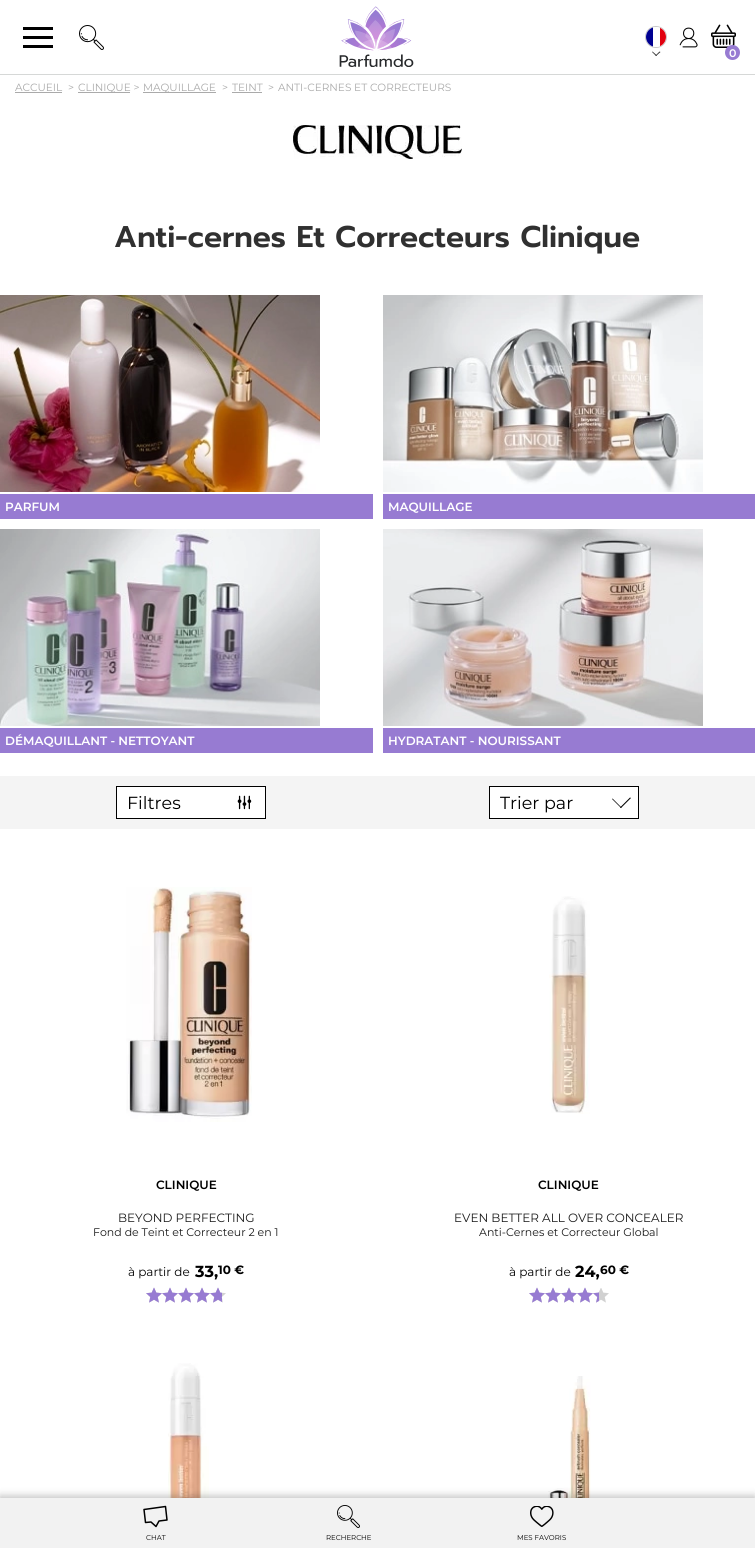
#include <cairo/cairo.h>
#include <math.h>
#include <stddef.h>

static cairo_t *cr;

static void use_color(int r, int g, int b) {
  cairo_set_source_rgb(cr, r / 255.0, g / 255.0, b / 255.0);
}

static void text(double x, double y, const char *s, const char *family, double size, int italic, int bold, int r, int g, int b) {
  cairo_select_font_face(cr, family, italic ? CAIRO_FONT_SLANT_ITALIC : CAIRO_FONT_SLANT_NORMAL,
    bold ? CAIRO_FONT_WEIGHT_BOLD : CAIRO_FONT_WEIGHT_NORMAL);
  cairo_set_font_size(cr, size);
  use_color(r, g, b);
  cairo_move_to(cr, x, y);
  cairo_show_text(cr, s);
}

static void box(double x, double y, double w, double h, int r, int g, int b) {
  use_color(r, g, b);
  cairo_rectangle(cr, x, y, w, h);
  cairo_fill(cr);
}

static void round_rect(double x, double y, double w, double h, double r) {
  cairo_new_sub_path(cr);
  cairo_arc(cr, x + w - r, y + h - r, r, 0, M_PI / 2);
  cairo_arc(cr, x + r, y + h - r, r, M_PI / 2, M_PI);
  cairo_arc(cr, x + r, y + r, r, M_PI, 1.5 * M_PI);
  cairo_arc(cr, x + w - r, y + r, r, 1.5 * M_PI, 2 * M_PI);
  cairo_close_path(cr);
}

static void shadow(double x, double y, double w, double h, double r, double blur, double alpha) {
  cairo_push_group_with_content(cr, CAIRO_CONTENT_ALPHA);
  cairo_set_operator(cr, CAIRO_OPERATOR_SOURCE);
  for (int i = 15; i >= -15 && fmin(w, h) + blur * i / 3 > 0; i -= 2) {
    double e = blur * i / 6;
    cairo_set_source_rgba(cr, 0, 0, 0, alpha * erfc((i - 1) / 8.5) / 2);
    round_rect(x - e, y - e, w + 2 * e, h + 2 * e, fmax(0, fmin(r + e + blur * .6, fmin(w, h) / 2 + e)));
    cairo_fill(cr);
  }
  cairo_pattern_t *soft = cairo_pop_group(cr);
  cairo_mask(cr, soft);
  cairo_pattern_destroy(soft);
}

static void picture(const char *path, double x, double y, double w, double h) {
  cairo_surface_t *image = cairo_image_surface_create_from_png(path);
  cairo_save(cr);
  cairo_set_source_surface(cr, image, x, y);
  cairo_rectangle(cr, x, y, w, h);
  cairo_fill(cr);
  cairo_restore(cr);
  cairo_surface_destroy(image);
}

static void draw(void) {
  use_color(255, 255, 255);
  cairo_paint(cr);
  box(0, 74, 755, 1, 214, 216, 215);
  box(23, 27, 30, 3, 0, 0, 0);
  box(23, 36, 30, 3, 0, 0, 0);
  box(23, 45, 30, 3, 0, 0, 0);
  picture("img_01.png", 79, 25, 25, 25);
  picture("img_02.png", 339, 6, 75, 61);
  cairo_arc(cr, 656, 37, 10.5, 0, 2 * M_PI);
  use_color(199, 199, 199);
  cairo_set_line_width(cr, 1);
  cairo_stroke(cr);
  use_color(255, 255, 255);
  cairo_arc(cr, 656, 37, 10, 0, 2 * M_PI);
  cairo_fill(cr);
  cairo_save(cr);
  round_rect(646, 27, 20, 20, 10);
  cairo_clip(cr);
  box(646, 27, 7, 20, 0, 0, 145);
  box(660, 27, 6, 20, 225, 0, 15);
  cairo_restore(cr);
  use_color(51, 51, 51);
  cairo_new_path(cr);
  cairo_move_to(cr, 659.5, 51.5);
  cairo_line_to(cr, 660.5, 52);
  cairo_line_to(cr, 656, 56);
  cairo_line_to(cr, 655.5, 55.5);
  cairo_close_path(cr);
  cairo_fill(cr);
  cairo_new_path(cr);
  cairo_move_to(cr, 652.5, 51.5);
  cairo_line_to(cr, 657, 55.5);
  cairo_line_to(cr, 656, 56);
  cairo_line_to(cr, 652, 52);
  cairo_close_path(cr);
  cairo_fill(cr);
  picture("img_03.png", 679, 27, 19, 21);
  picture("img_04.png", 711, 24, 25, 24);
  use_color(151, 123, 210);
  cairo_arc(cr, 732.5, 52.5, 7.5, 0, 2 * M_PI);
  cairo_fill(cr);
  box(15, 92, 47, 1, 170, 170, 170);
  box(78, 92, 52, 1, 170, 170, 170);
  box(143, 92, 73, 1, 170, 170, 170);
  box(232, 92, 30, 1, 170, 170, 170);
  picture("img_05.png", 293, 125, 169, 34);
  picture("img_06.png", 0, 295, 320, 197);
  box(0, 494, 373, 25, 151, 123, 210);
  picture("img_07.png", 383, 295, 320, 197);
  box(383, 494, 372, 25, 151, 123, 210);
  picture("img_08.png", 0, 529, 320, 197);
  box(0, 728, 373, 25, 151, 123, 210);
  picture("img_09.png", 383, 529, 320, 197);
  box(383, 728, 372, 25, 151, 123, 210);
  box(0, 776, 755, 53, 244, 244, 244);
  use_color(255, 255, 255);
  cairo_rectangle(cr, 116.5, 786.5, 149, 32);
  cairo_fill_preserve(cr);
  use_color(0, 0, 0);
  cairo_stroke(cr);
  picture("img_10.png", 237, 795, 15, 15);
  use_color(255, 255, 255);
  cairo_rectangle(cr, 489.5, 786.5, 149, 32);
  cairo_fill_preserve(cr);
  use_color(0, 0, 0);
  cairo_stroke(cr);
  cairo_new_path(cr);
  cairo_move_to(cr, 630, 797.5);
  cairo_line_to(cr, 631, 798);
  cairo_line_to(cr, 621, 808);
  cairo_line_to(cr, 620, 807.5);
  cairo_close_path(cr);
  cairo_fill(cr);
  cairo_new_path(cr);
  cairo_move_to(cr, 612.5, 798.5);
  cairo_line_to(cr, 621.5, 807.5);
  cairo_line_to(cr, 621, 808);
  cairo_line_to(cr, 612, 799);
  cairo_close_path(cr);
  cairo_fill(cr);
  picture("img_11.png", 126, 887, 126, 235);
  picture("img_14.png", 146, 1288, 16, 15);
  picture("img_12.png", 146, 1287, 16, 16);
  picture("img_14.png", 162, 1288, 16, 15);
  picture("img_12.png", 162, 1287, 16, 16);
  picture("img_14.png", 178, 1288, 16, 15);
  picture("img_12.png", 178, 1287, 16, 16);
  picture("img_14.png", 194, 1288, 16, 15);
  picture("img_12.png", 194, 1287, 16, 16);
  picture("img_14.png", 210, 1288, 16, 15);
  picture("img_13.png", 210, 1287, 12, 16);
  picture("img_15.png", 549, 896, 41, 218);
  picture("img_14.png", 529, 1288, 16, 15);
  picture("img_12.png", 529, 1287, 16, 16);
  picture("img_14.png", 545, 1288, 16, 15);
  picture("img_12.png", 545, 1287, 16, 16);
  picture("img_14.png", 561, 1288, 16, 15);
  picture("img_12.png", 561, 1287, 16, 16);
  picture("img_14.png", 577, 1288, 16, 15);
  picture("img_12.png", 577, 1287, 16, 16);
  picture("img_14.png", 593, 1288, 16, 15);
  picture("img_16.png", 593, 1292, 6, 11);
  picture("img_17.png", 168, 1363, 41, 135);
  picture("img_18.png", 548, 1376, 43, 122);
  use_color(0, 0, 0);
  shadow(0, 1496, 755, 50, 0, 4, 0.25);
  box(0, 1498, 755, 50, 242, 242, 242);
  cairo_new_path(cr);
  cairo_move_to(cr, 144, 1509.5);
  cairo_line_to(cr, 145.5, 1522.5);
  cairo_line_to(cr, 151, 1522);
  cairo_line_to(cr, 156, 1526.5);
  cairo_line_to(cr, 159, 1521);
  cairo_line_to(cr, 167, 1520);
  cairo_line_to(cr, 165.5, 1506.5);
  cairo_close_path(cr);
  use_color(0, 0, 0);
  cairo_set_line_width(cr, 1.5);
  cairo_set_line_join(cr, CAIRO_LINE_JOIN_ROUND);
  cairo_stroke(cr);
  picture("img_19.png", 337, 1505, 23, 23);
  picture("img_20.png", 530, 1506, 24, 21);
  text(729, 57, "0", "Montserrat SemiBold", 11, 0, 0, 255, 255, 255);
  text(15, 91, "ACCUEIL", "Montserrat", 10.5, 0, 0, 170, 170, 170);
  text(68, 91, ">", "Montserrat", 10.5, 0, 0, 170, 170, 170);
  text(78, 91, "CLINIQUE >", "Montserrat", 10.5, 0, 0, 170, 170, 170);
  text(143, 91, "MAQUILLAGE", "Montserrat", 10.5, 0, 0, 170, 170, 170);
  text(222, 91, ">", "Montserrat", 10.5, 0, 0, 170, 170, 170);
  text(232, 91, "TEINT", "Montserrat", 10.5, 0, 0, 170, 170, 170);
  text(268, 91, ">", "Montserrat", 10.5, 0, 0, 170, 170, 170);
  text(278, 91, "ANTI-CERNES ET CORRECTEURS", "Montserrat", 10.5, 0, 0, 170, 170, 170);
  text(114, 247, "Anti-cernes Et Correcteurs Clinique", "Prompt SemiBold", 30, 0, 0, 48, 48, 48);
  text(5, 511, "PARFUM", "Montserrat SemiBold", 12, 0, 0, 255, 255, 255);
  text(388, 511, "MAQUILLAGE", "Montserrat SemiBold", 12, 0, 0, 255, 255, 255);
  text(5, 745, "DÉMAQUILLANT - NETTOYANT", "Montserrat SemiBold", 12, 0, 0, 255, 255, 255);
  text(388, 745, "HYDRATANT - NOURISSANT", "Montserrat SemiBold", 12, 0, 0, 255, 255, 255);
  text(127, 809, "Filtres", "Montserrat", 17.5, 0, 0, 0, 0, 0);
  text(500, 809, "Trier par", "Montserrat", 17.5, 0, 0, 0, 0, 0);
  text(156, 1189, "CLINIQUE", "Montserrat SemiBold", 12, 0, 0, 0, 0, 0);
  text(118, 1222, "BEYOND PERFECTING", "Montserrat", 12, 0, 0, 26, 26, 26);
  text(93, 1236, "Fond de Teint et Correcteur 2 en 1", "Montserrat", 11, 0, 0, 26, 26, 26);
  text(128, 1276, "à partir de", "Montserrat", 12, 0, 0, 0, 0, 0);
  text(195, 1277, "33,", "Montserrat", 16, 0, 1, 0, 0, 0);
  text(218, 1274, "10 €", "Montserrat", 12, 0, 1, 0, 0, 0);
  text(538, 1189, "CLINIQUE", "Montserrat SemiBold", 12, 0, 0, 0, 0, 0);
  text(454, 1222, "EVEN BETTER ALL OVER CONCEALER", "Montserrat", 12, 0, 0, 26, 26, 26);
  text(479, 1236, "Anti-Cernes et Correcteur Global", "Montserrat", 11, 0, 0, 26, 26, 26);
  text(509, 1276, "à partir de", "Montserrat", 12, 0, 0, 0, 0, 0);
  text(575, 1277, "24,", "Montserrat", 16, 0, 1, 0, 0, 0);
  text(600, 1274, "60 €", "Montserrat", 12, 0, 1, 0, 0, 0);
  text(146, 1540, "CHAT", "Montserrat", 7, 0, 0, 0, 0, 0);
  text(326, 1540, "RECHERCHE", "Montserrat", 7, 0, 0, 0, 0, 0);
  text(517, 1540, "MES FAVORIS", "Montserrat", 7, 0, 0, 0, 0, 0);
}

int main(void) {
  cairo_surface_t *surface = cairo_image_surface_create(CAIRO_FORMAT_RGB24, 755, 1548);
  cr = cairo_create(surface);
  cairo_font_options_t *options = cairo_font_options_create();
  cairo_font_options_set_hint_metrics(options, CAIRO_HINT_METRICS_OFF);
  cairo_font_options_set_hint_style(options, CAIRO_HINT_STYLE_NONE);
  cairo_set_font_options(cr, options);
  cairo_set_miter_limit(cr, 4);
  draw();
  cairo_surface_write_to_png(surface, "out.png");
  cairo_font_options_destroy(options);
  cairo_destroy(cr);
  cairo_surface_destroy(surface);
  return 0;
}
